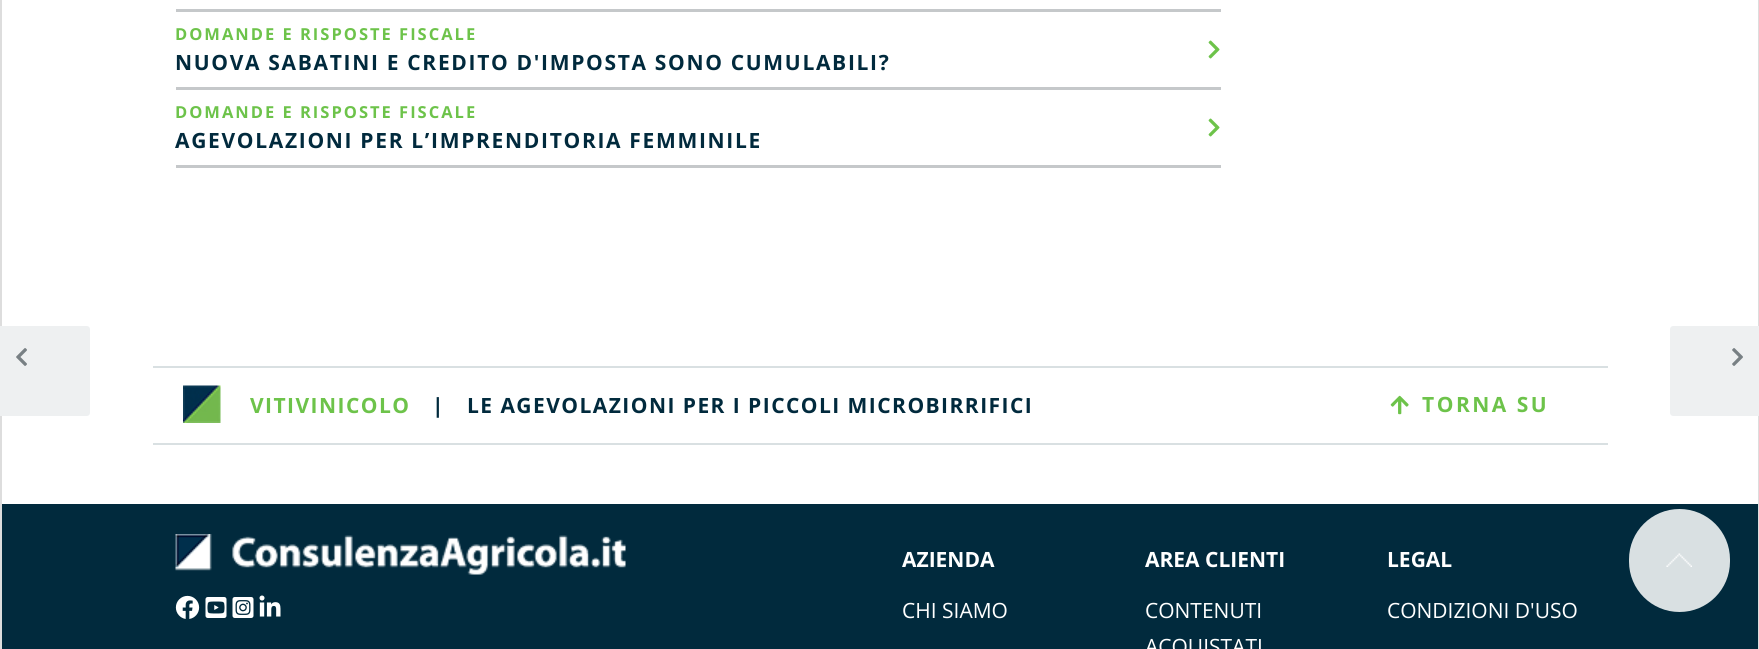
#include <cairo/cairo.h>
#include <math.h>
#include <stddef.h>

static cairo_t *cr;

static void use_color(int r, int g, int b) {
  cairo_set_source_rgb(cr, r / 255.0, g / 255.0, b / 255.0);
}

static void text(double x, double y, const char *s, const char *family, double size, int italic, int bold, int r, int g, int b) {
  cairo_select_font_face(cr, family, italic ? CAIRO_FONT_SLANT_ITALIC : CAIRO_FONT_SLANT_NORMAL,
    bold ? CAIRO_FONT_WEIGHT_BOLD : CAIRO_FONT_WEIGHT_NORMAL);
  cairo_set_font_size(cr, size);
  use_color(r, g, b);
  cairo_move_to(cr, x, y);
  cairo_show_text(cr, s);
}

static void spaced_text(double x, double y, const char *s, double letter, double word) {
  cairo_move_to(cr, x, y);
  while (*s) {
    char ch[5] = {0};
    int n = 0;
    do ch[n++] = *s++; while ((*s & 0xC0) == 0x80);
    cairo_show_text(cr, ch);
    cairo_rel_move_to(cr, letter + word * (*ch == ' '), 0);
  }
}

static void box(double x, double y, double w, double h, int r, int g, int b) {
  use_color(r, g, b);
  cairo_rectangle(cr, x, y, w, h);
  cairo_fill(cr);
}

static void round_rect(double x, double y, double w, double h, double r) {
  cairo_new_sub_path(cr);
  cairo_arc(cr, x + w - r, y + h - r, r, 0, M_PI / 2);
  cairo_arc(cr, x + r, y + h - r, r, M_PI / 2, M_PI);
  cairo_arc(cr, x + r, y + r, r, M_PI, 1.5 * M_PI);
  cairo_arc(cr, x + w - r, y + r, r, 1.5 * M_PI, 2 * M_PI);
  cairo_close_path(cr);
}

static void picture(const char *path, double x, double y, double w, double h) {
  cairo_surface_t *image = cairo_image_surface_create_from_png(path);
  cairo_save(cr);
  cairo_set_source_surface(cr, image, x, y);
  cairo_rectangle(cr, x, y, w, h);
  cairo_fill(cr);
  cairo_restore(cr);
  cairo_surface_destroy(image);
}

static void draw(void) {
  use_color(255, 255, 255);
  cairo_paint(cr);
  cairo_rectangle(cr, 1, -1, 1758, 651);
  use_color(221, 221, 221);
  cairo_stroke(cr);
  box(176, 9, 1045, 3, 197, 200, 202);
  picture("img_01.png", 1208, 40, 12, 19);
  box(176, 87, 1045, 3, 197, 200, 202);
  picture("img_01.png", 1208, 118, 12, 19);
  box(176, 165, 1045, 3, 197, 200, 202);
  use_color(238, 240, 241);
  cairo_new_path(cr);
  cairo_move_to(cr, 0, 326);
  cairo_line_to(cr, 87, 326);
  cairo_curve_to(cr, 88.5, 326, 90, 327.5, 90, 329);
  cairo_line_to(cr, 90, 413);
  cairo_curve_to(cr, 90, 414.5, 88.5, 416, 87, 416);
  cairo_line_to(cr, 0, 416);
  cairo_close_path(cr);
  cairo_fill(cr);
  picture("img_02.png", 16, 348, 11, 18);
  cairo_new_path(cr);
  cairo_move_to(cr, 1673, 326);
  cairo_line_to(cr, 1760, 326);
  cairo_line_to(cr, 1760, 416);
  cairo_line_to(cr, 1673, 416);
  cairo_curve_to(cr, 1671.5, 416, 1670, 414.5, 1670, 413);
  cairo_line_to(cr, 1670, 329);
  cairo_curve_to(cr, 1670, 327.5, 1671.5, 326, 1673, 326);
  cairo_close_path(cr);
  cairo_fill(cr);
  picture("img_03.png", 1732, 348, 11, 18);
  box(153, 366, 1455, 2, 217, 224, 226);
  box(153, 443, 1455, 2, 217, 224, 226);
  picture("img_04.png", 183, 385, 38, 38);
  picture("img_05.png", 1390, 395, 19, 20);
  box(2, 504, 1756, 145, 1, 42, 61);
  picture("img_06.png", 175, 534, 451, 41);
  picture("img_07.png", 175, 595, 25, 24);
  picture("img_08.png", 205, 597, 22, 21);
  picture("img_09.png", 232, 597, 22, 21);
  picture("img_10.png", 259, 595, 22, 22);
  use_color(217, 224, 226);
  round_rect(1629, 509, 101, 103, 50.5);
  cairo_fill(cr);
  picture("img_11.png", 1666, 553, 26, 14);
  cairo_select_font_face(cr, "Open Sans", CAIRO_FONT_SLANT_NORMAL, CAIRO_FONT_WEIGHT_BOLD);
  cairo_set_font_size(cr, 16.5);
  use_color(109, 195, 74);
  spaced_text(175, 40, "DOMANDE E RISPOSTE FISCALE", 2, 0);
  cairo_set_font_size(cr, 21);
  use_color(1, 42, 61);
  spaced_text(175, 70, "NUOVA SABATINI E CREDITO D'IMPOSTA SONO CUMULABILI?", 1.68, 0);
  cairo_set_font_size(cr, 16.5);
  use_color(109, 195, 74);
  spaced_text(175, 118, "DOMANDE E RISPOSTE FISCALE", 2, 0);
  cairo_set_font_size(cr, 21);
  use_color(1, 42, 61);
  spaced_text(175, 148, "AGEVOLAZIONI PER L’IMPRENDITORIA FEMMINILE", 1.68, 0);
  use_color(109, 195, 74);
  spaced_text(250, 413, "VITIVINICOLO", 1.45, 0);
  use_color(1, 42, 61);
  spaced_text(432, 413, "|", 1.45, 0);
  spaced_text(467, 413, "LE AGEVOLAZIONI PER I PICCOLI MICROBIRRIFICI", 1.45, 0);
  use_color(109, 195, 74);
  spaced_text(1422, 412, "TORNA SU", 2.5, 0);
  text(902, 567, "AZIENDA", "Open Sans", 21, 0, 1, 255, 255, 255);
  text(902, 618, "CHI SIAMO", "Open Sans", 21, 0, 0, 255, 255, 255);
  text(1145, 567, "AREA CLIENTI", "Open Sans", 21, 0, 1, 255, 255, 255);
  text(1145, 618, "CONTENUTI", "Open Sans", 21, 0, 0, 255, 255, 255);
  text(1145, 654, "ACQUISTATI", "Open Sans", 21, 0, 0, 255, 255, 255);
  text(1387, 567, "LEGAL", "Open Sans", 21, 0, 1, 255, 255, 255);
  text(1387, 618, "CONDIZIONI D'USO", "Open Sans", 21, 0, 0, 255, 255, 255);
}

int main(void) {
  cairo_surface_t *surface = cairo_image_surface_create(CAIRO_FORMAT_RGB24, 1759, 649);
  cr = cairo_create(surface);
  cairo_font_options_t *options = cairo_font_options_create();
  cairo_font_options_set_hint_metrics(options, CAIRO_HINT_METRICS_OFF);
  cairo_font_options_set_hint_style(options, CAIRO_HINT_STYLE_NONE);
  cairo_set_font_options(cr, options);
  cairo_set_miter_limit(cr, 4);
  draw();
  cairo_surface_write_to_png(surface, "out.png");
  cairo_font_options_destroy(options);
  cairo_destroy(cr);
  cairo_surface_destroy(surface);
  return 0;
}
